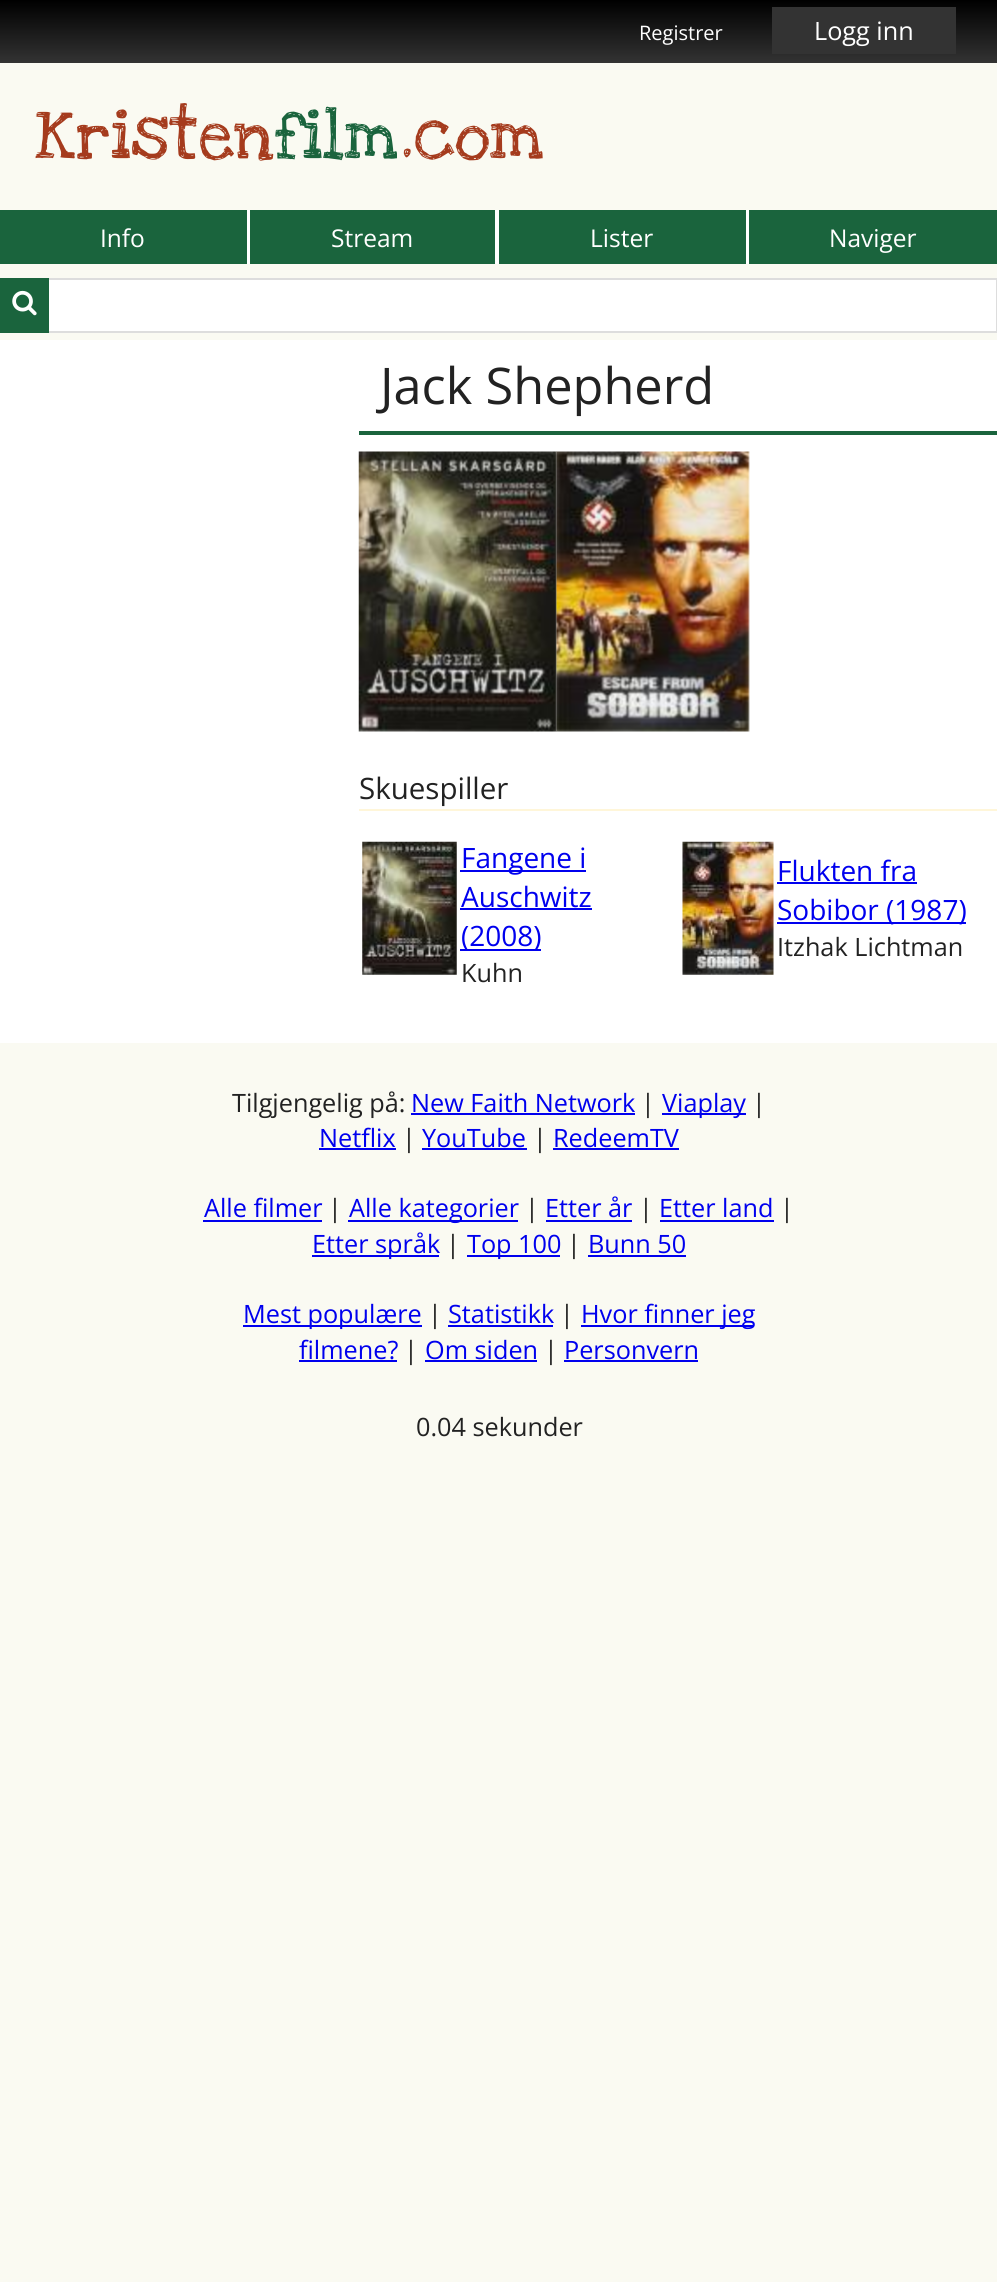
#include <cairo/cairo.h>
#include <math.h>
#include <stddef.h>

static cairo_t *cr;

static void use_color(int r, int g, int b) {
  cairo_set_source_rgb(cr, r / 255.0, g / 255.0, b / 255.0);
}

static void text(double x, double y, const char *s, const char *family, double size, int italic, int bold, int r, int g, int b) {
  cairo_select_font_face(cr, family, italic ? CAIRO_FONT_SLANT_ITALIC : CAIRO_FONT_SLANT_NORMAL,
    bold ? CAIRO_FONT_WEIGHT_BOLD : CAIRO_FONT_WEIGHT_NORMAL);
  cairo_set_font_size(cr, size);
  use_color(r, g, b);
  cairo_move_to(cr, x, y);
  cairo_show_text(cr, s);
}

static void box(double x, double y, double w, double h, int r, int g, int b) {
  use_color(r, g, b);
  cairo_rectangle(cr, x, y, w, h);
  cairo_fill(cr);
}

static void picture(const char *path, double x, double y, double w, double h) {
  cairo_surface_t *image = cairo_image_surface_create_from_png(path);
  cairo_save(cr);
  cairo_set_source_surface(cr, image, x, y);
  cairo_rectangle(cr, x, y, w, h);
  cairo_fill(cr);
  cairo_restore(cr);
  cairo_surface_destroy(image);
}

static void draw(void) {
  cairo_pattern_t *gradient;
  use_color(250, 250, 242);
  cairo_paint(cr);
  gradient = cairo_pattern_create_linear(499, 0, 499, 63);
  cairo_pattern_add_color_stop_rgba(gradient, 0, 0, 0, 0, 1);
  cairo_pattern_add_color_stop_rgba(gradient, 1, 0.2, 0.2, 0.2, 1);
  cairo_set_source(cr, gradient);
  cairo_pattern_destroy(gradient);
  cairo_rectangle(cr, 0, 0, 997, 63);
  cairo_fill(cr);
  box(772, 7, 184, 47, 51, 51, 51);
  box(0, 210, 247, 54, 26, 100, 61);
  box(247, 210, 3, 54, 255, 255, 255);
  box(250, 210, 245, 54, 26, 100, 61);
  box(495, 210, 4, 54, 255, 255, 255);
  box(499, 210, 247, 54, 26, 100, 61);
  box(746, 210, 3, 54, 255, 255, 255);
  box(749, 210, 248, 54, 26, 100, 61);
  box(49, 280, 947, 51, 255, 255, 255);
  cairo_rectangle(cr, 1, 279, 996, 53);
  use_color(221, 221, 221);
  cairo_stroke(cr);
  box(0, 278, 49, 55, 26, 100, 61);
  picture("img_01.png", 12, 290, 25, 26);
  box(0, 340, 997, 703, 255, 255, 255);
  box(359, 431, 638, 4, 26, 100, 61);
  picture("img_02.png", 358, 451, 199, 281);
  picture("img_03.png", 556, 451, 194, 281);
  box(359, 809, 638, 2, 255, 246, 217);
  picture("img_04.png", 362, 841, 95, 134);
  box(460, 870, 126, 2, 0, 0, 238);
  box(460, 908, 132, 2, 0, 0, 238);
  box(460, 949, 81, 2, 0, 0, 238);
  picture("img_05.png", 682, 841, 92, 134);
  box(777, 882, 140, 2, 0, 0, 238);
  box(777, 922, 189, 2, 0, 0, 238);
  box(411, 1113, 224, 2, 0, 0, 238);
  box(662, 1113, 84, 2, 0, 0, 238);
  box(319, 1148, 77, 2, 0, 0, 238);
  box(422, 1148, 105, 2, 0, 0, 238);
  box(553, 1148, 126, 2, 0, 0, 238);
  box(203, 1220, 119, 2, 0, 0, 238);
  box(348, 1220, 170, 2, 0, 0, 238);
  box(546, 1220, 86, 2, 0, 0, 238);
  box(660, 1220, 114, 2, 0, 0, 238);
  box(312, 1255, 127, 2, 0, 0, 238);
  box(467, 1255, 93, 2, 0, 0, 238);
  box(588, 1255, 98, 2, 0, 0, 238);
  box(243, 1325, 179, 2, 0, 0, 238);
  box(448, 1325, 105, 2, 0, 0, 238);
  box(581, 1325, 173, 2, 0, 0, 238);
  box(299, 1360, 98, 2, 0, 0, 238);
  box(425, 1360, 112, 2, 0, 0, 238);
  box(564, 1360, 134, 2, 0, 0, 238);
  text(639, 40, "Registrer", "Open Sans", 20, 0, 0, 255, 255, 255);
  text(814, 40, "Logg inn", "Open Sans", 25.25, 0, 0, 255, 255, 255);
  text(35, 158, "Kristen", "Love Ya Like A Sister", 70, 0, 0, 165, 59, 29);
  text(274, 158, "film", "Love Ya Like A Sister", 70, 0, 0, 26, 100, 61);
  text(400, 158, ".com", "Love Ya Like A Sister", 70, 0, 0, 165, 59, 29);
  text(100, 247, "Info", "Open Sans", 24.5, 0, 0, 255, 255, 255);
  text(331, 247, "Stream", "Open Sans", 24.5, 0, 0, 255, 255, 255);
  text(590, 247, "Lister", "Open Sans", 24.5, 0, 0, 255, 255, 255);
  text(829, 247, "Naviger", "Open Sans", 24.5, 0, 0, 255, 255, 255);
  text(380, 404, "Jack Shepherd", "Open Sans", 50.5, 0, 0, 34, 34, 34);
  text(359, 799, "Skuespiller", "Open Sans", 29.5, 0, 0, 34, 34, 34);
  text(461, 868, "Fangene i", "Open Sans", 28, 0, 0, 0, 0, 238);
  text(461, 907, "Auschwitz", "Open Sans", 28, 0, 0, 0, 0, 238);
  text(461, 946, "(2008)", "Open Sans", 28, 0, 0, 0, 0, 238);
  text(461, 982, "Kuhn", "Open Sans", 25.25, 0, 0, 34, 34, 34);
  text(777, 881, "Flukten fra", "Open Sans", 28, 0, 0, 0, 0, 238);
  text(777, 920, "Sobibor (1987)", "Open Sans", 28, 0, 0, 0, 0, 238);
  text(777, 956, "Itzhak Lichtman", "Open Sans", 25.25, 0, 0, 34, 34, 34);
  text(232, 1112, "Tilgjengelig på:", "Open Sans", 25.25, 0, 0, 34, 34, 34);
  text(411, 1112, "New Faith Network", "Open Sans", 25.25, 0, 0, 0, 0, 238);
  text(641, 1112, "|", "Open Sans", 25.25, 0, 0, 34, 34, 34);
  text(662, 1112, "Viaplay", "Open Sans", 25.25, 0, 0, 0, 0, 238);
  text(752, 1112, "|", "Open Sans", 25.25, 0, 0, 34, 34, 34);
  text(319, 1147, "Netflix", "Open Sans", 25.25, 0, 0, 0, 0, 238);
  text(402, 1147, "|", "Open Sans", 25.25, 0, 0, 34, 34, 34);
  text(422, 1147, "YouTube", "Open Sans", 25.25, 0, 0, 0, 0, 238);
  text(533, 1147, "|", "Open Sans", 25.25, 0, 0, 34, 34, 34);
  text(553, 1147, "RedeemTV", "Open Sans", 25.25, 0, 0, 0, 0, 238);
  text(204, 1217, "Alle filmer", "Open Sans", 25.25, 0, 0, 0, 0, 238);
  text(328, 1217, "|", "Open Sans", 25.25, 0, 0, 34, 34, 34);
  text(349, 1217, "Alle kategorier", "Open Sans", 25.25, 0, 0, 0, 0, 238);
  text(525, 1217, "|", "Open Sans", 25.25, 0, 0, 34, 34, 34);
  text(545, 1217, "Etter år", "Open Sans", 25.25, 0, 0, 0, 0, 238);
  text(639, 1217, "|", "Open Sans", 25.25, 0, 0, 34, 34, 34);
  text(659, 1217, "Etter land", "Open Sans", 25.25, 0, 0, 0, 0, 238);
  text(780, 1217, "|", "Open Sans", 25.25, 0, 0, 34, 34, 34);
  text(312, 1253, "Etter språk", "Open Sans", 25.25, 0, 0, 0, 0, 238);
  text(446, 1253, "|", "Open Sans", 25.25, 0, 0, 34, 34, 34);
  text(467, 1253, "Top 100", "Open Sans", 25.25, 0, 0, 0, 0, 238);
  text(567, 1253, "|", "Open Sans", 25.25, 0, 0, 34, 34, 34);
  text(588, 1253, "Bunn 50", "Open Sans", 25.25, 0, 0, 0, 0, 238);
  text(243, 1323, "Mest populære", "Open Sans", 25.25, 0, 0, 0, 0, 238);
  text(428, 1323, "|", "Open Sans", 25.25, 0, 0, 34, 34, 34);
  text(448, 1323, "Statistikk", "Open Sans", 25.25, 0, 0, 0, 0, 238);
  text(560, 1323, "|", "Open Sans", 25.25, 0, 0, 34, 34, 34);
  text(581, 1323, "Hvor finner jeg", "Open Sans", 25.25, 0, 0, 0, 0, 238);
  text(299, 1359, "filmene?", "Open Sans", 25.25, 0, 0, 0, 0, 238);
  text(404, 1359, "|", "Open Sans", 25.25, 0, 0, 34, 34, 34);
  text(425, 1359, "Om siden", "Open Sans", 25.25, 0, 0, 0, 0, 238);
  text(544, 1359, "|", "Open Sans", 25.25, 0, 0, 34, 34, 34);
  text(564, 1359, "Personvern", "Open Sans", 25.25, 0, 0, 0, 0, 238);
  text(416, 1436, "0.04 sekunder", "Open Sans", 25.25, 0, 0, 34, 34, 34);
}

int main(void) {
  cairo_surface_t *surface = cairo_image_surface_create(CAIRO_FORMAT_RGB24, 997, 2282);
  cr = cairo_create(surface);
  cairo_font_options_t *options = cairo_font_options_create();
  cairo_font_options_set_hint_metrics(options, CAIRO_HINT_METRICS_OFF);
  cairo_font_options_set_hint_style(options, CAIRO_HINT_STYLE_NONE);
  cairo_set_font_options(cr, options);
  cairo_set_miter_limit(cr, 4);
  draw();
  cairo_surface_write_to_png(surface, "out.png");
  cairo_font_options_destroy(options);
  cairo_destroy(cr);
  cairo_surface_destroy(surface);
  return 0;
}
